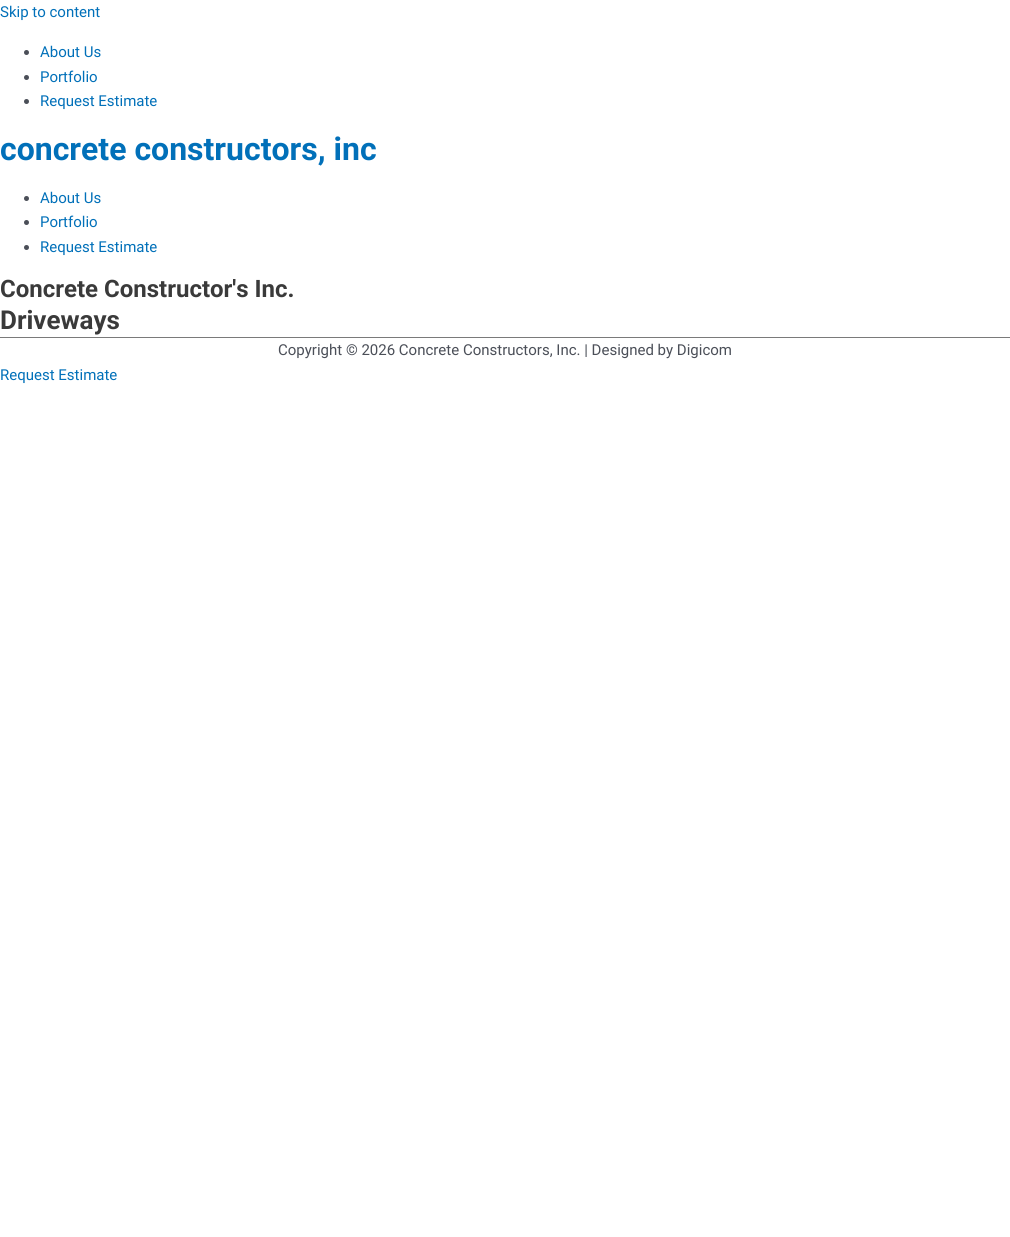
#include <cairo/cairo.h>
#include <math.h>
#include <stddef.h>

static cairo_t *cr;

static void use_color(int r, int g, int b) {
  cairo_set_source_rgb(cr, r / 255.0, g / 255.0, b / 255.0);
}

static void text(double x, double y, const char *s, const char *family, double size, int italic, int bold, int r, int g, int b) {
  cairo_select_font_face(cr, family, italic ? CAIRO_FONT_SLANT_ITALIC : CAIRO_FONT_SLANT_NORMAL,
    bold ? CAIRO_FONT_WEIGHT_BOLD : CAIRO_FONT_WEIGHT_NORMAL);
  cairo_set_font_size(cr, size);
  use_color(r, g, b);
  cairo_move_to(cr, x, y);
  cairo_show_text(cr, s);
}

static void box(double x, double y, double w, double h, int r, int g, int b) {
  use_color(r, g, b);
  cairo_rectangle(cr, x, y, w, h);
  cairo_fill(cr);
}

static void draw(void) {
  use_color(255, 255, 255);
  cairo_paint(cr);
  use_color(75, 79, 88);
  cairo_arc(cr, 26.5, 52.5, 2.5, 0, 2 * M_PI);
  cairo_fill(cr);
  cairo_arc(cr, 26.5, 77.5, 2.5, 0, 2 * M_PI);
  cairo_fill(cr);
  cairo_arc(cr, 26.5, 101.5, 2.5, 0, 2 * M_PI);
  cairo_fill(cr);
  cairo_arc(cr, 26.5, 198.5, 2.5, 0, 2 * M_PI);
  cairo_fill(cr);
  cairo_arc(cr, 26.5, 222.5, 2.5, 0, 2 * M_PI);
  cairo_fill(cr);
  cairo_arc(cr, 26.5, 247.5, 2.5, 0, 2 * M_PI);
  cairo_fill(cr);
  box(0, 337, 1010, 1, 122, 122, 122);
  text(0, 17, "Skip to content", "Roboto", 15, 0, 0, 1, 112, 185);
  text(40, 57, "About Us", "Roboto", 15, 0, 0, 1, 112, 185);
  text(40, 82, "Portfolio", "Roboto", 15, 0, 0, 1, 112, 185);
  text(40, 106, "Request Estimate", "Roboto", 15, 0, 0, 1, 112, 185);
  text(0, 160, "concrete constructors, inc", "Roboto", 32, 0, 1, 1, 112, 185);
  text(40, 203, "About Us", "Roboto", 15, 0, 0, 1, 112, 185);
  text(40, 227, "Portfolio", "Roboto", 15, 0, 0, 1, 112, 185);
  text(40, 252, "Request Estimate", "Roboto", 15, 0, 0, 1, 112, 185);
  text(0, 297, "Concrete Constructor's Inc.", "Roboto", 24, 0, 1, 58, 58, 58);
  text(0, 329, "Driveways", "Roboto", 26, 0, 1, 58, 58, 58);
  text(278, 355, "Copyright © 2026 Concrete Constructors, Inc. | Designed by Digicom", "Roboto", 15, 0, 0, 75, 79, 88);
  text(0, 380, "Request Estimate", "Roboto", 15, 0, 0, 1, 112, 185);
}

int main(void) {
  cairo_surface_t *surface = cairo_image_surface_create(CAIRO_FORMAT_RGB24, 1010, 1237);
  cr = cairo_create(surface);
  cairo_font_options_t *options = cairo_font_options_create();
  cairo_font_options_set_hint_metrics(options, CAIRO_HINT_METRICS_OFF);
  cairo_font_options_set_hint_style(options, CAIRO_HINT_STYLE_NONE);
  cairo_set_font_options(cr, options);
  cairo_set_miter_limit(cr, 4);
  draw();
  cairo_surface_write_to_png(surface, "out.png");
  cairo_font_options_destroy(options);
  cairo_destroy(cr);
  cairo_surface_destroy(surface);
  return 0;
}
